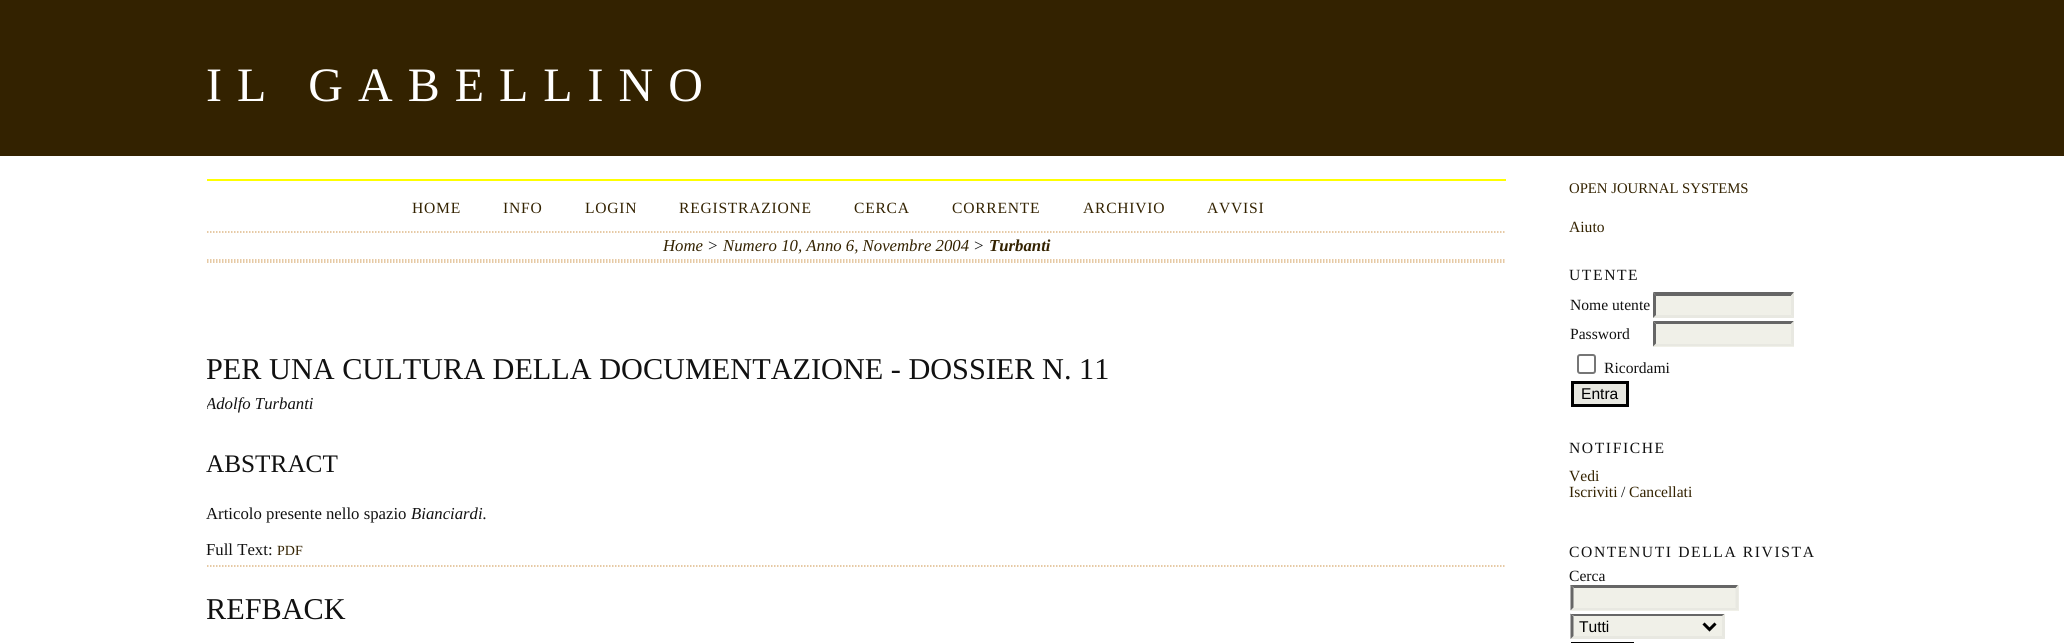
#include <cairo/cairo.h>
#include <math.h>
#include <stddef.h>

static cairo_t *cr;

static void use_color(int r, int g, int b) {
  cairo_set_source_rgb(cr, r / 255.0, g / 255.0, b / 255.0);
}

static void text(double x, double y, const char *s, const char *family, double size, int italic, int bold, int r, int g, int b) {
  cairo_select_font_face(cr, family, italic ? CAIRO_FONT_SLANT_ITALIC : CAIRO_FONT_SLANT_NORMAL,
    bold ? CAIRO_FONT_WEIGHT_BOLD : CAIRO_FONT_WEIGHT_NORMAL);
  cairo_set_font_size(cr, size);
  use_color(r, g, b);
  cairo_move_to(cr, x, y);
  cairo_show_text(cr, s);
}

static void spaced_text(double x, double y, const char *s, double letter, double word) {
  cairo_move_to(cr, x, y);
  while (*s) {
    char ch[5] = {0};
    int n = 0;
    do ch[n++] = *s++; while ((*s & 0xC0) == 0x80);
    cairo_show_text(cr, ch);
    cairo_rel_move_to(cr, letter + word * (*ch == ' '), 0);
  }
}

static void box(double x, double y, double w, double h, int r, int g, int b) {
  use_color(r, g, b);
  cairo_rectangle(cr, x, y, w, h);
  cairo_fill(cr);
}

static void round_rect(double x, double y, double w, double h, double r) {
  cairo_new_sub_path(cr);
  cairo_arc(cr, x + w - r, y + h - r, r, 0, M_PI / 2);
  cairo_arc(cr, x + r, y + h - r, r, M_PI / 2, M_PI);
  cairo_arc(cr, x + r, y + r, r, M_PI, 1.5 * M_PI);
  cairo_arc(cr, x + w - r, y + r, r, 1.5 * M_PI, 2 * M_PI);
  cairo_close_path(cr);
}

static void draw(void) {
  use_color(255, 255, 255);
  cairo_paint(cr);
  box(0, 0, 2064, 156, 51, 34, 0);
  box(207, 179, 1299, 2, 255, 255, 0);
  cairo_new_path(cr);
  cairo_move_to(cr, 207, 232);
  cairo_line_to(cr, 1506, 232);
  use_color(222, 184, 135);
  cairo_set_line_width(cr, 1.5);
  cairo_set_dash(cr, (double[]){1.5, 1.5}, 2, 0);
  cairo_stroke(cr);
  cairo_new_path(cr);
  cairo_move_to(cr, 207, 260);
  cairo_line_to(cr, 1506, 260);
  cairo_stroke(cr);
  cairo_new_path(cr);
  cairo_move_to(cr, 207, 262);
  cairo_line_to(cr, 1506, 262);
  cairo_stroke(cr);
  cairo_new_path(cr);
  cairo_move_to(cr, 207, 566);
  cairo_line_to(cr, 1506, 566);
  cairo_stroke(cr);
  box(1653, 293, 141, 25, 240, 240, 232);
  use_color(102, 102, 102);
  cairo_new_path(cr);
  cairo_move_to(cr, 1653, 292);
  cairo_line_to(cr, 1794, 292);
  cairo_line_to(cr, 1791, 296);
  cairo_line_to(cr, 1656, 296);
  cairo_close_path(cr);
  cairo_fill(cr);
  use_color(232, 232, 225);
  cairo_new_path(cr);
  cairo_move_to(cr, 1794, 292.5);
  cairo_line_to(cr, 1794, 318);
  cairo_line_to(cr, 1791, 315);
  cairo_line_to(cr, 1791, 295.5);
  cairo_close_path(cr);
  cairo_fill(cr);
  cairo_new_path(cr);
  cairo_move_to(cr, 1794, 318);
  cairo_line_to(cr, 1653, 318);
  cairo_line_to(cr, 1656, 315);
  cairo_line_to(cr, 1791, 315);
  cairo_close_path(cr);
  cairo_fill(cr);
  use_color(102, 102, 102);
  cairo_new_path(cr);
  cairo_move_to(cr, 1653, 318);
  cairo_line_to(cr, 1653, 292.5);
  cairo_line_to(cr, 1656, 295.5);
  cairo_line_to(cr, 1656, 315);
  cairo_close_path(cr);
  cairo_fill(cr);
  box(1653, 321, 141, 26, 240, 240, 232);
  use_color(102, 102, 102);
  cairo_new_path(cr);
  cairo_move_to(cr, 1653, 321);
  cairo_line_to(cr, 1794, 321);
  cairo_line_to(cr, 1791, 324);
  cairo_line_to(cr, 1656, 324);
  cairo_close_path(cr);
  cairo_fill(cr);
  use_color(232, 232, 225);
  cairo_new_path(cr);
  cairo_move_to(cr, 1794, 321);
  cairo_line_to(cr, 1794, 346.5);
  cairo_line_to(cr, 1791, 343.5);
  cairo_line_to(cr, 1791, 324);
  cairo_close_path(cr);
  cairo_fill(cr);
  cairo_new_path(cr);
  cairo_move_to(cr, 1794, 346);
  cairo_line_to(cr, 1653, 346);
  cairo_line_to(cr, 1656, 344);
  cairo_line_to(cr, 1791, 344);
  cairo_close_path(cr);
  cairo_fill(cr);
  use_color(102, 102, 102);
  cairo_new_path(cr);
  cairo_move_to(cr, 1653, 346.5);
  cairo_line_to(cr, 1653, 321);
  cairo_line_to(cr, 1656, 324);
  cairo_line_to(cr, 1656, 343.5);
  cairo_close_path(cr);
  cairo_fill(cr);
  round_rect(1578, 355, 17, 18, 2);
  use_color(118, 118, 118);
  cairo_set_line_width(cr, 2);
  cairo_set_dash(cr, NULL, 0, 0);
  cairo_stroke(cr);
  use_color(232, 232, 225);
  cairo_rectangle(cr, 1572.5, 382.5, 55, 23);
  cairo_fill_preserve(cr);
  use_color(0, 0, 0);
  cairo_set_line_width(cr, 3);
  cairo_stroke(cr);
  box(1571, 585, 168, 26, 240, 240, 232);
  use_color(102, 102, 102);
  cairo_new_path(cr);
  cairo_move_to(cr, 1570, 585);
  cairo_line_to(cr, 1738, 585);
  cairo_line_to(cr, 1736, 588);
  cairo_line_to(cr, 1574, 588);
  cairo_close_path(cr);
  cairo_fill(cr);
  use_color(232, 232, 225);
  cairo_new_path(cr);
  cairo_move_to(cr, 1738.5, 585);
  cairo_line_to(cr, 1738.5, 610.5);
  cairo_line_to(cr, 1735.5, 607.5);
  cairo_line_to(cr, 1735.5, 588);
  cairo_close_path(cr);
  cairo_fill(cr);
  cairo_new_path(cr);
  cairo_move_to(cr, 1738, 610);
  cairo_line_to(cr, 1570, 610);
  cairo_line_to(cr, 1574, 608);
  cairo_line_to(cr, 1736, 608);
  cairo_close_path(cr);
  cairo_fill(cr);
  use_color(102, 102, 102);
  cairo_new_path(cr);
  cairo_move_to(cr, 1570.5, 610.5);
  cairo_line_to(cr, 1570.5, 585);
  cairo_line_to(cr, 1573.5, 588);
  cairo_line_to(cr, 1573.5, 607.5);
  cairo_close_path(cr);
  cairo_fill(cr);
  box(1571, 614, 154, 25, 240, 240, 232);
  use_color(102, 102, 102);
  cairo_new_path(cr);
  cairo_move_to(cr, 1570, 614);
  cairo_line_to(cr, 1725, 614);
  cairo_line_to(cr, 1722, 616);
  cairo_line_to(cr, 1574, 616);
  cairo_close_path(cr);
  cairo_fill(cr);
  use_color(232, 232, 225);
  cairo_new_path(cr);
  cairo_move_to(cr, 1725, 613.5);
  cairo_line_to(cr, 1725, 639);
  cairo_line_to(cr, 1722, 636);
  cairo_line_to(cr, 1722, 616.5);
  cairo_close_path(cr);
  cairo_fill(cr);
  cairo_new_path(cr);
  cairo_move_to(cr, 1725, 639);
  cairo_line_to(cr, 1570, 639);
  cairo_line_to(cr, 1574, 636);
  cairo_line_to(cr, 1722, 636);
  cairo_close_path(cr);
  cairo_fill(cr);
  use_color(102, 102, 102);
  cairo_new_path(cr);
  cairo_move_to(cr, 1570.5, 639);
  cairo_line_to(cr, 1570.5, 613.5);
  cairo_line_to(cr, 1573.5, 616.5);
  cairo_line_to(cr, 1573.5, 636);
  cairo_close_path(cr);
  cairo_fill(cr);
  cairo_new_path(cr);
  cairo_move_to(cr, 1703.5, 623.5);
  cairo_line_to(cr, 1709.5, 629.5);
  cairo_line_to(cr, 1715.5, 623.5);
  use_color(0, 0, 0);
  cairo_stroke(cr);
  cairo_rectangle(cr, 1572.5, 643.5, 60, 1);
  cairo_stroke(cr);
  cairo_select_font_face(cr, "Liberation Serif", CAIRO_FONT_SLANT_NORMAL, CAIRO_FONT_WEIGHT_NORMAL);
  cairo_set_font_size(cr, 48);
  use_color(255, 255, 255);
  spaced_text(206, 101, "IL GABELLINO", 15, 0);
  cairo_set_font_size(cr, 15.6);
  use_color(51, 34, 0);
  spaced_text(412, 213, "HOME", 0.75, 0);
  spaced_text(503, 213, "INFO", 0.75, 0);
  spaced_text(585, 213, "LOGIN", 0.75, 0);
  spaced_text(679, 213, "REGISTRAZIONE", 0.75, 0);
  spaced_text(854, 213, "CERCA", 0.75, 0);
  spaced_text(952, 213, "CORRENTE", 0.75, 0);
  spaced_text(1083, 213, "ARCHIVIO", 0.75, 0);
  spaced_text(1207, 213, "AVVISI", 0.75, 0);
  text(663, 251, "Home", "Liberation Serif", 16.75, 1, 0, 51, 34, 0);
  text(707, 251, ">", "Liberation Serif", 16.75, 1, 0, 17, 17, 17);
  text(723, 251, "Numero 10, Anno 6, Novembre 2004", "Liberation Serif", 16.75, 1, 0, 51, 34, 0);
  text(973, 251, ">", "Liberation Serif", 16.75, 1, 0, 17, 17, 17);
  text(989, 251, "Turbanti", "Liberation Serif", 16.75, 1, 1, 51, 34, 0);
  text(206, 379, "PER UNA CULTURA DELLA DOCUMENTAZIONE - DOSSIER N. 11", "Liberation Serif", 30.25, 0, 0, 17, 17, 17);
  cairo_save(cr);
  cairo_rectangle(cr, 207, 180, 1299, 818);
  cairo_clip(cr);
  text(206, 409, "Adolfo Turbanti", "Liberation Serif", 16.75, 1, 0, 17, 17, 17);
  cairo_restore(cr);
  text(206, 472, "ABSTRACT", "Liberation Serif", 25.25, 0, 0, 17, 17, 17);
  text(206, 519, "Articolo presente nello spazio", "Liberation Serif", 16.75, 0, 0, 17, 17, 17);
  text(411, 519, "Bianciardi.", "Liberation Serif", 16.75, 1, 0, 17, 17, 17);
  text(206, 555, "Full Text:", "Liberation Serif", 16.75, 0, 0, 17, 17, 17);
  text(277, 555, "PDF", "Liberation Serif", 14, 0, 0, 51, 34, 0);
  text(206, 619, "REFBACK", "Liberation Serif", 30.25, 0, 0, 17, 17, 17);
  text(1569, 193, "OPEN JOURNAL SYSTEMS", "Liberation Serif", 14.75, 0, 0, 51, 34, 0);
  text(1569, 232, "Aiuto", "Liberation Serif", 15.6, 0, 0, 51, 34, 0);
  use_color(17, 17, 17);
  spaced_text(1569, 280, "UTENTE", 1.6, 0);
  text(1570, 310, "Nome utente", "Liberation Serif", 15.6, 0, 0, 17, 17, 17);
  text(1570, 339, "Password", "Liberation Serif", 15.6, 0, 0, 17, 17, 17);
  text(1604, 373, "Ricordami", "Liberation Serif", 15.6, 0, 0, 17, 17, 17);
  text(1581, 399, "Entra", "Liberation Sans", 15.6, 0, 0, 0, 0, 0);
  cairo_select_font_face(cr, "Liberation Serif", CAIRO_FONT_SLANT_NORMAL, CAIRO_FONT_WEIGHT_NORMAL);
  use_color(17, 17, 17);
  spaced_text(1569, 453, "NOTIFICHE", 1.6, 0);
  text(1569, 481, "Vedi", "Liberation Serif", 15.6, 0, 0, 51, 34, 0);
  text(1569, 497, "Iscriviti", "Liberation Serif", 15.6, 0, 0, 51, 34, 0);
  text(1621, 497, "/", "Liberation Serif", 15.6, 0, 0, 17, 17, 17);
  text(1629, 497, "Cancellati", "Liberation Serif", 15.6, 0, 0, 51, 34, 0);
  use_color(17, 17, 17);
  spaced_text(1569, 557, "CONTENUTI DELLA RIVISTA", 1.6, 0);
  text(1569, 581, "Cerca", "Liberation Serif", 15.6, 0, 0, 17, 17, 17);
  text(1579, 632, "Tutti", "Liberation Sans", 15.6, 0, 0, 0, 0, 0);
}

int main(void) {
  cairo_surface_t *surface = cairo_image_surface_create(CAIRO_FORMAT_RGB24, 2064, 643);
  cr = cairo_create(surface);
  cairo_font_options_t *options = cairo_font_options_create();
  cairo_font_options_set_hint_metrics(options, CAIRO_HINT_METRICS_OFF);
  cairo_font_options_set_hint_style(options, CAIRO_HINT_STYLE_NONE);
  cairo_set_font_options(cr, options);
  cairo_set_miter_limit(cr, 4);
  draw();
  cairo_surface_write_to_png(surface, "out.png");
  cairo_font_options_destroy(options);
  cairo_destroy(cr);
  cairo_surface_destroy(surface);
  return 0;
}
